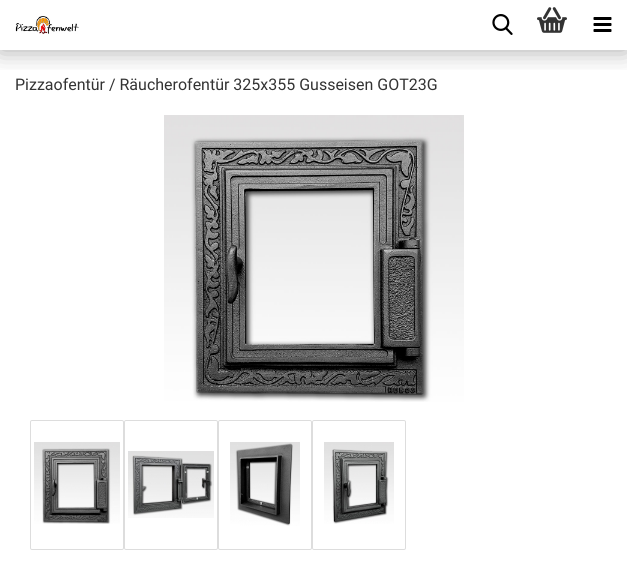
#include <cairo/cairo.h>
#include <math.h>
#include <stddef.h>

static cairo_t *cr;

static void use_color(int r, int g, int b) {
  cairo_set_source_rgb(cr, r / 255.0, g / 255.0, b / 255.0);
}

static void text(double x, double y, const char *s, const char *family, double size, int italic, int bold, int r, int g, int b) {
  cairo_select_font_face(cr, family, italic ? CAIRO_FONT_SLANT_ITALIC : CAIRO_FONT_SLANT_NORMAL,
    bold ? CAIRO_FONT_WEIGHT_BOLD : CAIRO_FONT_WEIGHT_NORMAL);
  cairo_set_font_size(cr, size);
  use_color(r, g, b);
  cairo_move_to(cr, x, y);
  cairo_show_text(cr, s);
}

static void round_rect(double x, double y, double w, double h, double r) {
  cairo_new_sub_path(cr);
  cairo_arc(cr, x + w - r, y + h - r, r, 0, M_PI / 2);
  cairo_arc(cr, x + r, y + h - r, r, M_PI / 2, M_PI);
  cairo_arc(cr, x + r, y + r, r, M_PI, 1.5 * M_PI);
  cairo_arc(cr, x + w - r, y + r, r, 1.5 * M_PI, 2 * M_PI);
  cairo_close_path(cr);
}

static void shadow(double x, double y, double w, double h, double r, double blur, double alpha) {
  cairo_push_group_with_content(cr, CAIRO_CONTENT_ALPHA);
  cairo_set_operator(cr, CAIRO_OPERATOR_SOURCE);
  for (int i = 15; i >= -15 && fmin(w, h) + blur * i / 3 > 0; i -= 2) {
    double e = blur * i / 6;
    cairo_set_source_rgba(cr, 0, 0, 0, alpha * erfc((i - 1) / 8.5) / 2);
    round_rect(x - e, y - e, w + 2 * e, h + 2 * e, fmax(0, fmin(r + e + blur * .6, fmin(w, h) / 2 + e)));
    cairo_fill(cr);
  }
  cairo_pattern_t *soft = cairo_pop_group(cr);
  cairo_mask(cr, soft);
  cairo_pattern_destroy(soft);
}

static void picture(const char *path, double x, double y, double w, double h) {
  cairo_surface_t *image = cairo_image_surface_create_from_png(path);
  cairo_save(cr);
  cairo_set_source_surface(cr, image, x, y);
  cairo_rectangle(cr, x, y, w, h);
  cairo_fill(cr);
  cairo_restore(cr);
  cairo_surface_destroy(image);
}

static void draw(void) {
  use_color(255, 255, 255);
  cairo_paint(cr);
  cairo_save(cr);
  cairo_rectangle(cr, 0, 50, 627, 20);
  cairo_clip(cr);
  use_color(0, 0, 0);
  shadow(0, 0, 627, 50, 0, 12.5, 0.35);
  cairo_restore(cr);
  picture("img_01.png", 15, 16, 64, 18);
  picture("img_02.png", 492, 14, 21, 21);
  picture("img_03.png", 537, 7, 30, 26);
  picture("img_04.png", 593, 17, 19, 15);
  picture("img_05.png", 164, 115, 300, 287);
  round_rect(30.5, 420.5, 93, 129, 1.5);
  use_color(221, 221, 221);
  cairo_set_line_width(cr, 1);
  cairo_stroke(cr);
  picture("img_06.png", 34, 442, 86, 82);
  round_rect(124.5, 420.5, 93, 129, 1.5);
  cairo_stroke(cr);
  picture("img_07.png", 128, 451, 86, 67);
  round_rect(218.5, 420.5, 93, 129, 1.5);
  cairo_stroke(cr);
  picture("img_08.png", 230, 442, 70, 84);
  round_rect(312.5, 420.5, 93, 129, 1.5);
  cairo_stroke(cr);
  picture("img_09.png", 324, 442, 70, 82);
  text(15, 90, "Pizzaofentür / Räucherofentür 325x355 Gusseisen GOT23G", "Roboto", 16, 0, 0, 51, 51, 51);
}

int main(void) {
  cairo_surface_t *surface = cairo_image_surface_create(CAIRO_FORMAT_RGB24, 627, 575);
  cr = cairo_create(surface);
  cairo_font_options_t *options = cairo_font_options_create();
  cairo_font_options_set_hint_metrics(options, CAIRO_HINT_METRICS_OFF);
  cairo_font_options_set_hint_style(options, CAIRO_HINT_STYLE_NONE);
  cairo_set_font_options(cr, options);
  cairo_set_miter_limit(cr, 4);
  draw();
  cairo_surface_write_to_png(surface, "out.png");
  cairo_font_options_destroy(options);
  cairo_destroy(cr);
  cairo_surface_destroy(surface);
  return 0;
}
